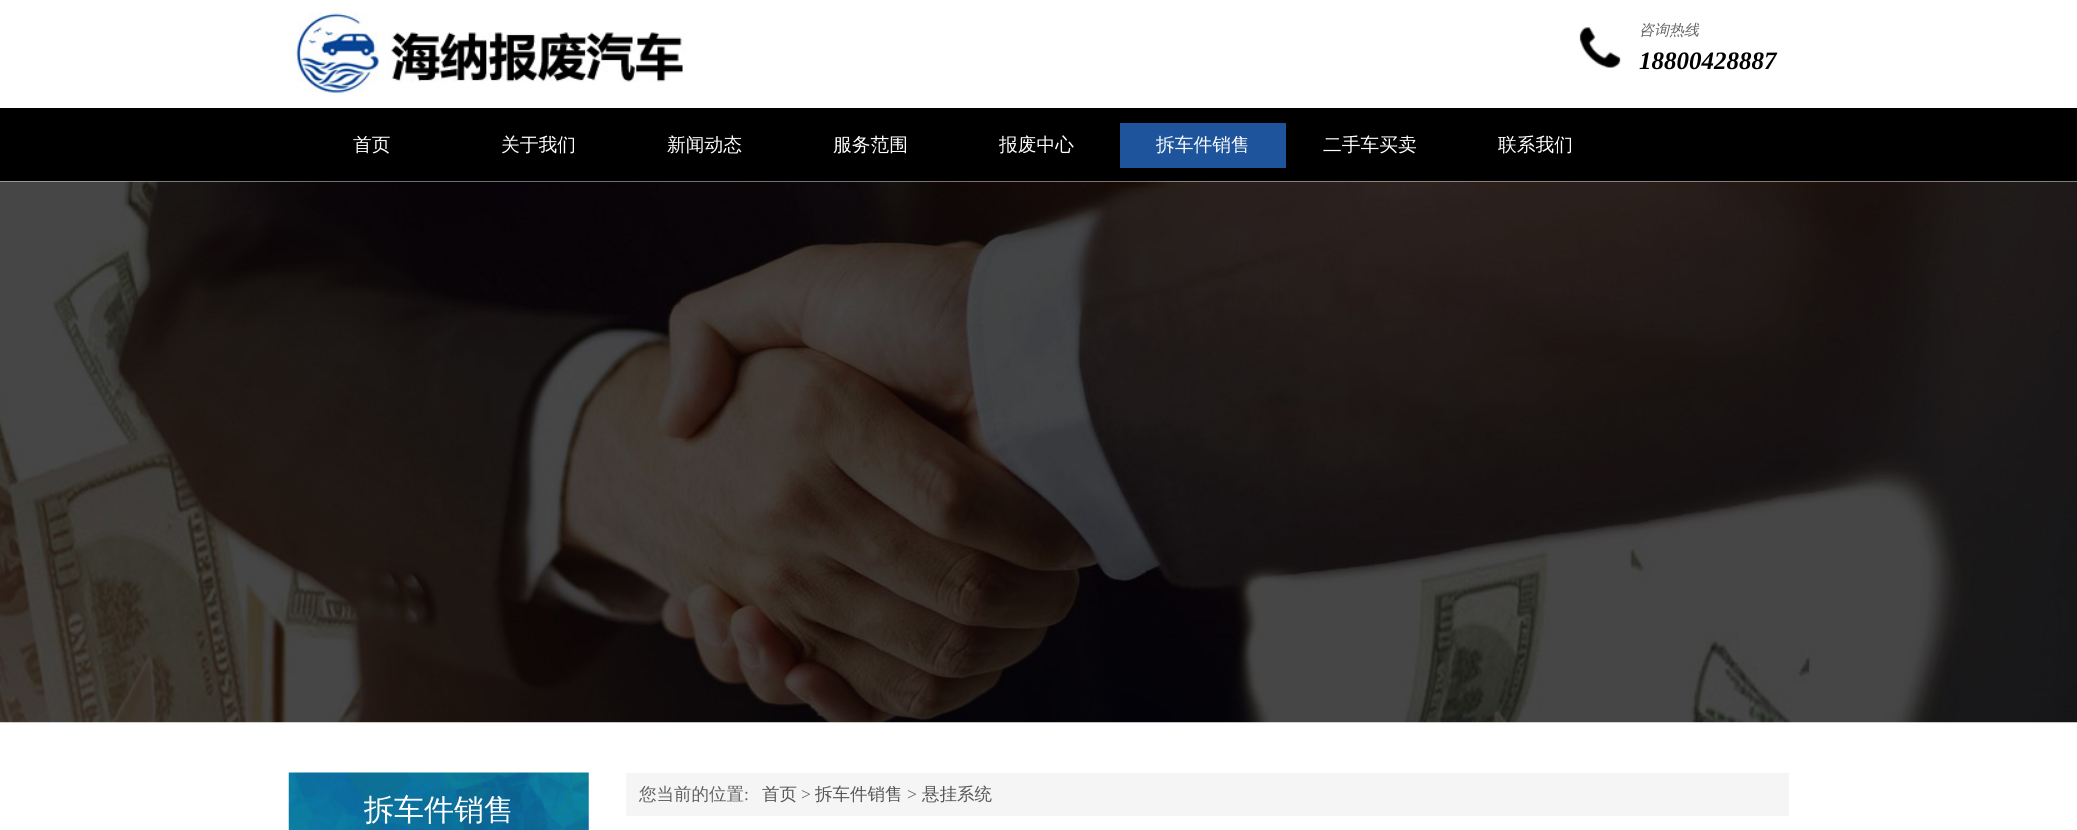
#include <cairo/cairo.h>
#include <math.h>
#include <stddef.h>

static cairo_t *cr;

static void use_color(int r, int g, int b) {
  cairo_set_source_rgb(cr, r / 255.0, g / 255.0, b / 255.0);
}

static void text(double x, double y, const char *s, const char *family, double size, int italic, int bold, int r, int g, int b) {
  cairo_select_font_face(cr, family, italic ? CAIRO_FONT_SLANT_ITALIC : CAIRO_FONT_SLANT_NORMAL,
    bold ? CAIRO_FONT_WEIGHT_BOLD : CAIRO_FONT_WEIGHT_NORMAL);
  cairo_set_font_size(cr, size);
  use_color(r, g, b);
  cairo_move_to(cr, x, y);
  cairo_show_text(cr, s);
}

static void box(double x, double y, double w, double h, int r, int g, int b) {
  use_color(r, g, b);
  cairo_rectangle(cr, x, y, w, h);
  cairo_fill(cr);
}

static void picture(const char *path, double x, double y, double w, double h) {
  cairo_surface_t *image = cairo_image_surface_create_from_png(path);
  cairo_save(cr);
  cairo_set_source_surface(cr, image, x, y);
  cairo_rectangle(cr, x, y, w, h);
  cairo_fill(cr);
  cairo_restore(cr);
  cairo_surface_destroy(image);
}

static void draw(void) {
  use_color(255, 255, 255);
  cairo_paint(cr);
  picture("img_01.png", 289, 12, 397, 81);
  picture("img_02.png", 1579, 27, 42, 41);
  box(0, 108, 2077, 73, 0, 0, 0);
  box(1120, 123, 166, 45, 30, 84, 156);
  picture("img_03.png", 0, 181, 2077, 542);
  picture("img_04.png", 288, 772, 301, 58);
  box(626, 773, 1163, 43, 245, 245, 245);
  text(1639, 35, "咨询热线", "WenQuanYi Zen Hei Medium", 15, 1, 0, 102, 102, 102);
  text(1639, 69, "18800428887", "Liberation Serif", 25, 1, 1, 0, 0, 0);
  text(353, 151, "首页", "WenQuanYi Zen Hei Medium", 18.75, 0, 0, 255, 255, 255);
  text(501, 151, "关于我们", "WenQuanYi Zen Hei Medium", 18.75, 0, 0, 255, 255, 255);
  text(667, 151, "新闻动态", "WenQuanYi Zen Hei Medium", 18.75, 0, 0, 255, 255, 255);
  text(833, 151, "服务范围", "WenQuanYi Zen Hei Medium", 18.75, 0, 0, 255, 255, 255);
  text(999, 151, "报废中心", "WenQuanYi Zen Hei Medium", 18.75, 0, 0, 255, 255, 255);
  text(1156, 151, "拆车件销售", "WenQuanYi Zen Hei Medium", 18.75, 0, 0, 255, 255, 255);
  text(1323, 151, "二手车买卖", "WenQuanYi Zen Hei Medium", 18.75, 0, 0, 255, 255, 255);
  text(1498, 151, "联系我们", "WenQuanYi Zen Hei Medium", 18.75, 0, 0, 255, 255, 255);
  text(364, 820, "拆车件销售", "WenQuanYi Zen Hei Medium", 30, 0, 0, 255, 255, 255);
  text(639, 800, "您当前的位置", "WenQuanYi Zen Hei Medium", 17.5, 0, 0, 96, 96, 96);
  text(744, 800, ":", "Liberation Serif", 17.5, 0, 0, 96, 96, 96);
  text(762, 800, "首页", "WenQuanYi Zen Hei Medium", 17.5, 0, 0, 86, 86, 86);
  text(801, 800, ">", "Liberation Serif", 17.5, 0, 0, 96, 96, 96);
  text(815, 800, "拆车件销售", "WenQuanYi Zen Hei Medium", 17.5, 0, 0, 86, 86, 86);
  text(907, 800, ">", "Liberation Serif", 17.5, 0, 0, 96, 96, 96);
  text(922, 800, "悬挂系统", "WenQuanYi Zen Hei Medium", 17.5, 0, 0, 86, 86, 86);
}

int main(void) {
  cairo_surface_t *surface = cairo_image_surface_create(CAIRO_FORMAT_RGB24, 2077, 830);
  cr = cairo_create(surface);
  cairo_font_options_t *options = cairo_font_options_create();
  cairo_font_options_set_hint_metrics(options, CAIRO_HINT_METRICS_OFF);
  cairo_font_options_set_hint_style(options, CAIRO_HINT_STYLE_NONE);
  cairo_set_font_options(cr, options);
  cairo_set_miter_limit(cr, 4);
  draw();
  cairo_surface_write_to_png(surface, "out.png");
  cairo_font_options_destroy(options);
  cairo_destroy(cr);
  cairo_surface_destroy(surface);
  return 0;
}
